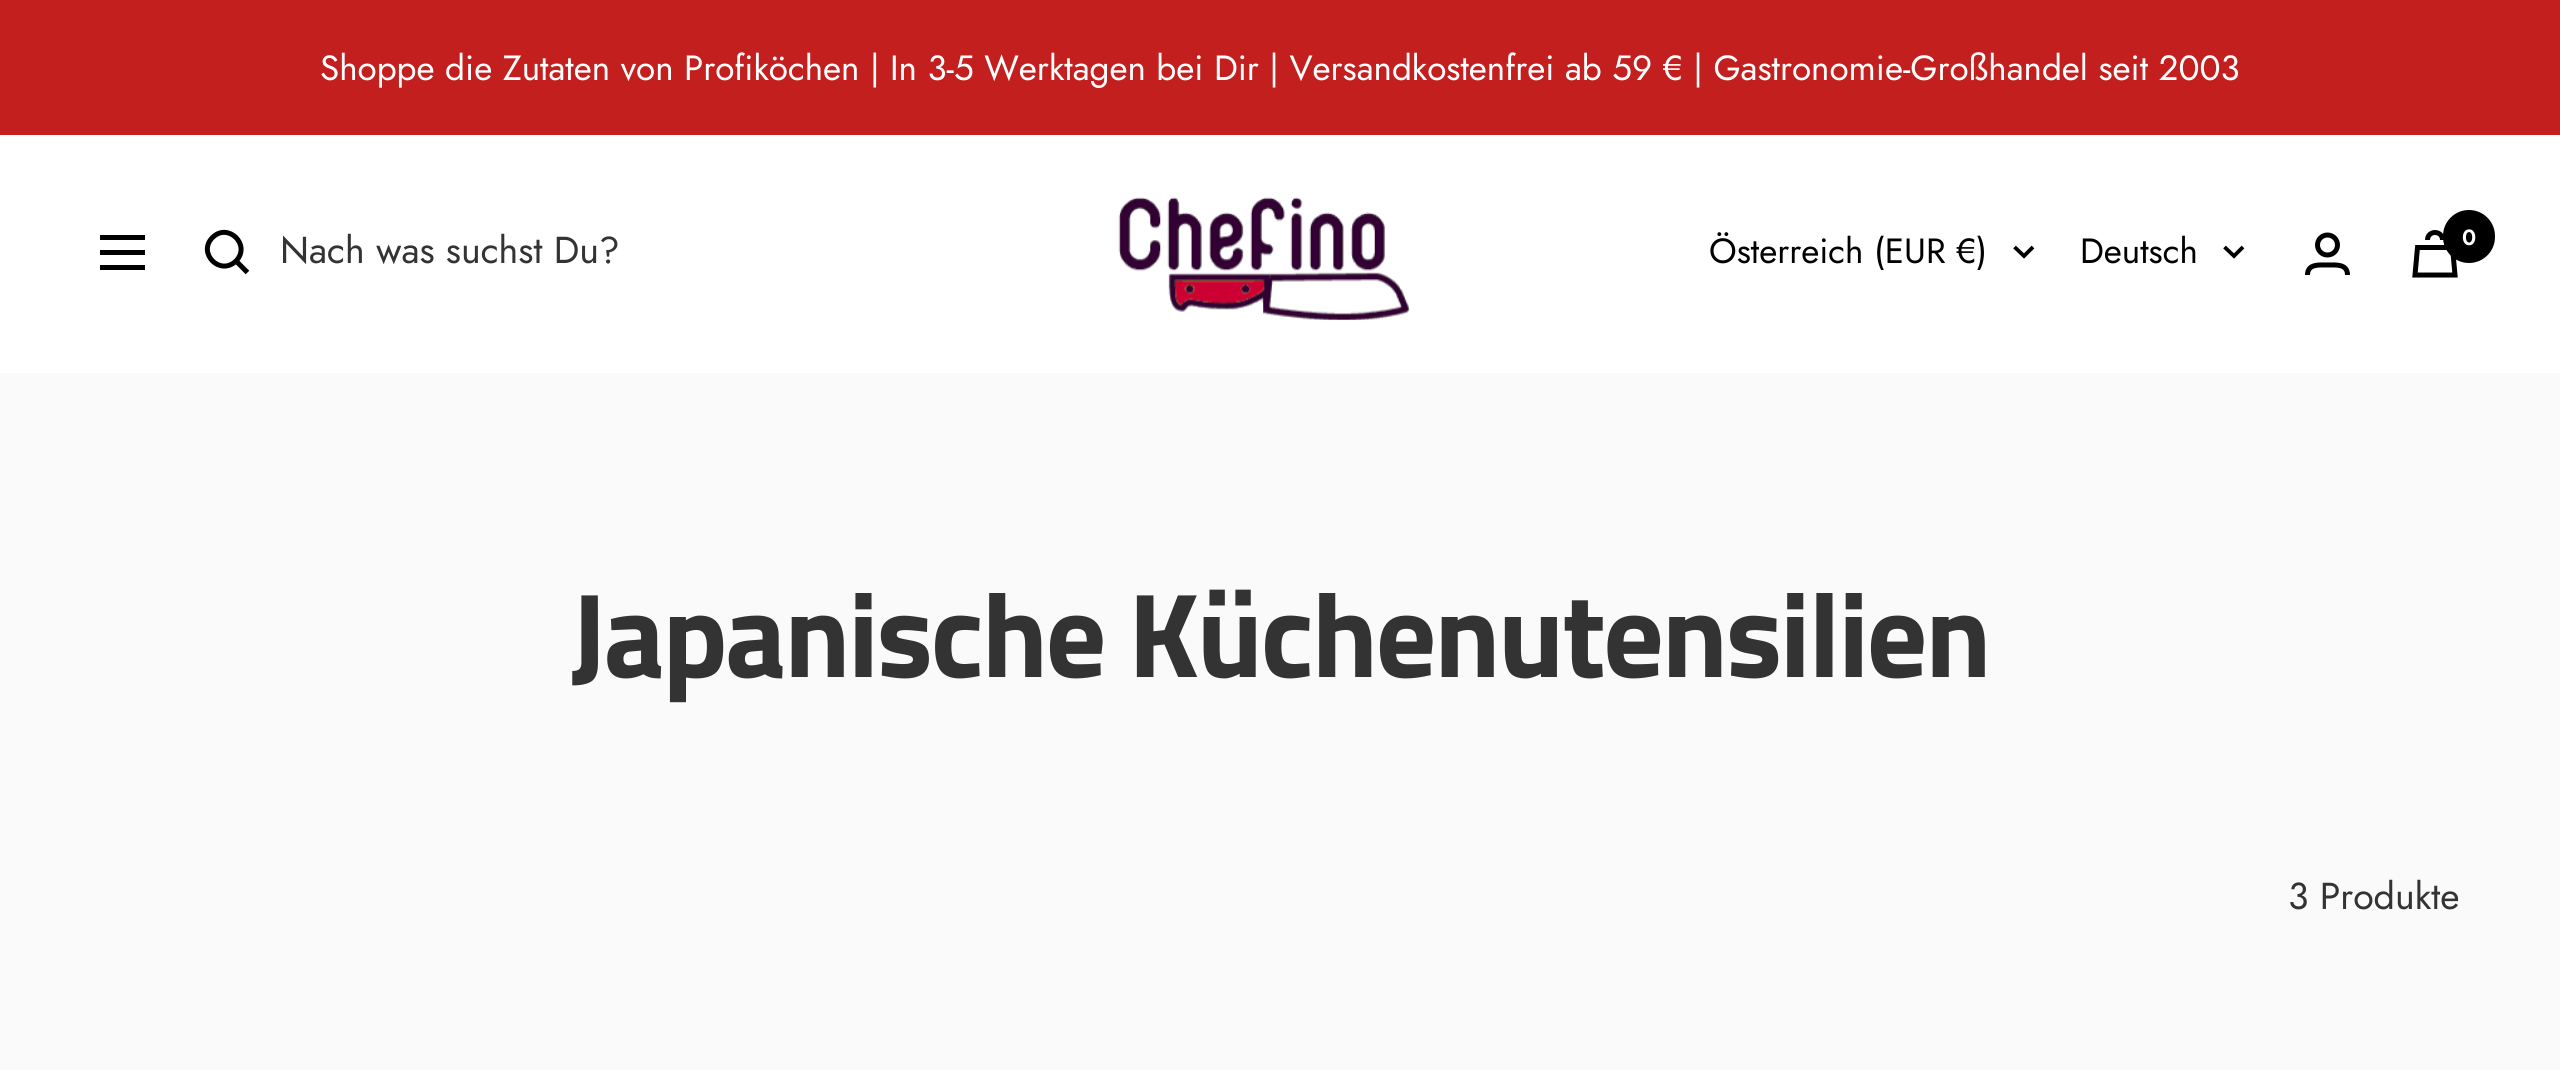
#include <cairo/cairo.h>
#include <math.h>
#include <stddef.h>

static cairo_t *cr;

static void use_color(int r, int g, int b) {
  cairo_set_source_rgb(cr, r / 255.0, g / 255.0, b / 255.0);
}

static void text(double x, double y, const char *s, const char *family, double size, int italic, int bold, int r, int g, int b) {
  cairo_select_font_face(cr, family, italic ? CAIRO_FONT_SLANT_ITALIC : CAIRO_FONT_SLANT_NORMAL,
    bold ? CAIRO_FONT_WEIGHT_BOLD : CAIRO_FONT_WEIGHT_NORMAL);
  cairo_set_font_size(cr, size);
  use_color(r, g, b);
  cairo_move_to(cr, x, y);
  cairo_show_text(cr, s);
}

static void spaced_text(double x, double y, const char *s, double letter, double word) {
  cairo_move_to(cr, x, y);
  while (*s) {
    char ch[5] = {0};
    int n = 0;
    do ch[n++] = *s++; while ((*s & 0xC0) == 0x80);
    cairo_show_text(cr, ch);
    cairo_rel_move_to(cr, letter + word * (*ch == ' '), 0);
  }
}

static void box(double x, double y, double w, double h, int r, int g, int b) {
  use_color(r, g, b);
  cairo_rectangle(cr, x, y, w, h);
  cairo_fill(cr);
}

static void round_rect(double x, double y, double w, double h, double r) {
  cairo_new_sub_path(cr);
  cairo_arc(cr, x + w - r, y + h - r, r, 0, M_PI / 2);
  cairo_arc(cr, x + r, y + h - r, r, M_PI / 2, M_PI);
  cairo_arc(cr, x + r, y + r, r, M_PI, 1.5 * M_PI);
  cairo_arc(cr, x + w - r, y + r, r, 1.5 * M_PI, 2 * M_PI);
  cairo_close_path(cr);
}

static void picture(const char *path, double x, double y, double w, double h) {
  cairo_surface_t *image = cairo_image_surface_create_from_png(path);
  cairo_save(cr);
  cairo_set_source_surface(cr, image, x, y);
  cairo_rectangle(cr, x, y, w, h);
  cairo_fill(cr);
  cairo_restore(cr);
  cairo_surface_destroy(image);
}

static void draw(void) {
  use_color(250, 250, 250);
  cairo_paint(cr);
  box(0, 0, 2560, 135, 196, 31, 31);
  box(0, 135, 2560, 238, 255, 255, 255);
  cairo_new_path(cr);
  cairo_move_to(cr, 100, 237.5);
  cairo_line_to(cr, 145, 237.5);
  cairo_move_to(cr, 100, 267.5);
  cairo_line_to(cr, 145, 267.5);
  cairo_close_path(cr);
  cairo_move_to(cr, 100, 252.5);
  cairo_line_to(cr, 145, 252.5);
  cairo_close_path(cr);
  use_color(0, 0, 0);
  cairo_set_line_width(cr, 5);
  cairo_stroke(cr);
  cairo_new_path(cr);
  cairo_move_to(cr, 236, 261);
  cairo_curve_to(cr, 251.5, 245, 228, 222, 212.5, 237.5);
  cairo_curve_to(cr, 197, 253, 220, 276.5, 236, 261);
  cairo_close_path(cr);
  cairo_move_to(cr, 236, 261);
  cairo_line_to(cr, 247.5, 272.5);
  cairo_stroke(cr);
  picture("img_01.png", 1118, 197, 292, 123);
  cairo_new_path(cr);
  cairo_move_to(cr, 2014.5, 247);
  cairo_line_to(cr, 2024, 256);
  cairo_line_to(cr, 2033, 247);
  cairo_set_line_width(cr, 3.8);
  cairo_stroke(cr);
  cairo_new_path(cr);
  cairo_move_to(cr, 2224.5, 247);
  cairo_line_to(cr, 2234, 256);
  cairo_line_to(cr, 2243, 247);
  cairo_stroke(cr);
  cairo_arc(cr, 2327.5, 245, 10, 0, 2 * M_PI);
  cairo_set_line_width(cr, 5);
  cairo_stroke(cr);
  cairo_new_path(cr);
  cairo_move_to(cr, 2307.5, 275);
  cairo_curve_to(cr, 2307.5, 263.5, 2319.5, 265, 2327.5, 265);
  cairo_curve_to(cr, 2335.5, 265, 2347.5, 263.5, 2347.5, 275);
  cairo_stroke(cr);
  cairo_new_path(cr);
  cairo_move_to(cr, 2417.5, 247.5);
  cairo_line_to(cr, 2452.5, 247.5);
  cairo_line_to(cr, 2455, 275);
  cairo_line_to(cr, 2415, 275);
  cairo_close_path(cr);
  cairo_move_to(cr, 2442.5, 240);
  cairo_curve_to(cr, 2442.5, 230, 2427.5, 230, 2427.5, 240);
  cairo_stroke(cr);
  round_rect(2443, 210, 52, 53, 26);
  cairo_fill(cr);
  text(320, 80, "Shoppe die Zutaten von Profiköchen | In 3-5 Werktagen bei Dir | Versandkostenfrei ab 59 € | Gastronomie-Großhandel seit 2003", "Jost", 35, 0, 0, 255, 255, 255);
  text(280, 263, "Nach was suchst Du?", "Jost", 37.5, 0, 0, 51, 51, 51);
  text(1709, 263, "Österreich (EUR €)", "Jost", 35, 0, 0, 0, 0, 0);
  text(2080, 263, "Deutsch", "Jost", 35, 0, 0, 0, 0, 0);
  text(2462, 245, "0", "Jost SemiBold", 22, 0, 0, 255, 255, 255);
  cairo_select_font_face(cr, "Titillium Web", CAIRO_FONT_SLANT_NORMAL, CAIRO_FONT_WEIGHT_BOLD);
  cairo_set_font_size(cr, 120);
  use_color(51, 51, 51);
  spaced_text(570, 677, "Japanische Küchenutensilien", -2.5, 0);
  text(2288, 909, "3 Produkte", "Jost", 37.5, 0, 0, 51, 51, 51);
}

int main(void) {
  cairo_surface_t *surface = cairo_image_surface_create(CAIRO_FORMAT_RGB24, 2560, 1070);
  cr = cairo_create(surface);
  cairo_font_options_t *options = cairo_font_options_create();
  cairo_font_options_set_hint_metrics(options, CAIRO_HINT_METRICS_OFF);
  cairo_font_options_set_hint_style(options, CAIRO_HINT_STYLE_NONE);
  cairo_set_font_options(cr, options);
  cairo_set_miter_limit(cr, 4);
  draw();
  cairo_surface_write_to_png(surface, "out.png");
  cairo_font_options_destroy(options);
  cairo_destroy(cr);
  cairo_surface_destroy(surface);
  return 0;
}
